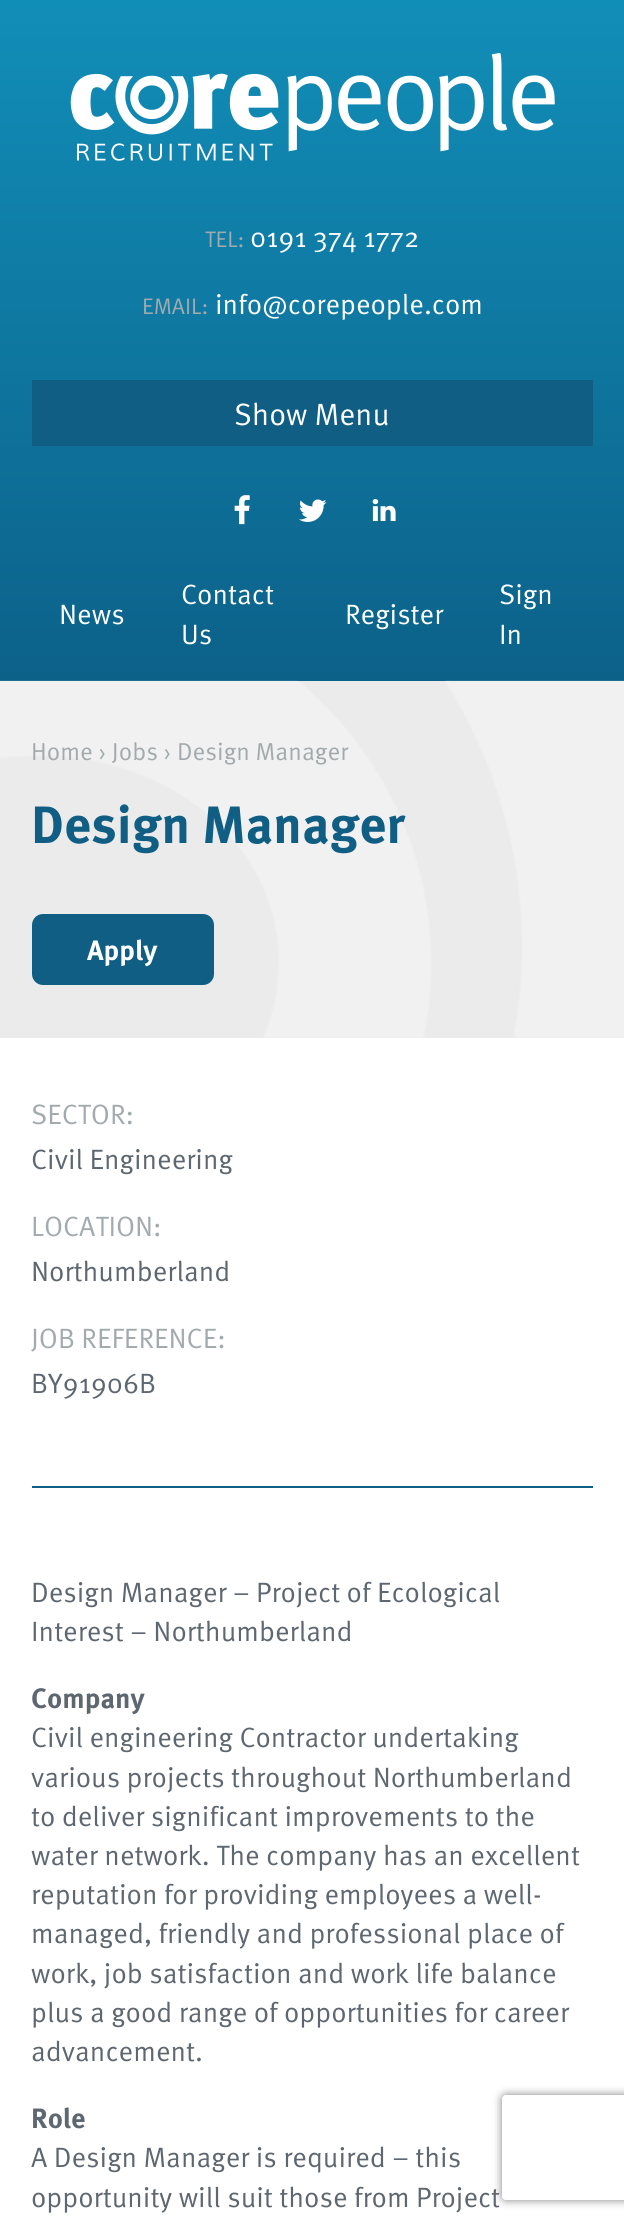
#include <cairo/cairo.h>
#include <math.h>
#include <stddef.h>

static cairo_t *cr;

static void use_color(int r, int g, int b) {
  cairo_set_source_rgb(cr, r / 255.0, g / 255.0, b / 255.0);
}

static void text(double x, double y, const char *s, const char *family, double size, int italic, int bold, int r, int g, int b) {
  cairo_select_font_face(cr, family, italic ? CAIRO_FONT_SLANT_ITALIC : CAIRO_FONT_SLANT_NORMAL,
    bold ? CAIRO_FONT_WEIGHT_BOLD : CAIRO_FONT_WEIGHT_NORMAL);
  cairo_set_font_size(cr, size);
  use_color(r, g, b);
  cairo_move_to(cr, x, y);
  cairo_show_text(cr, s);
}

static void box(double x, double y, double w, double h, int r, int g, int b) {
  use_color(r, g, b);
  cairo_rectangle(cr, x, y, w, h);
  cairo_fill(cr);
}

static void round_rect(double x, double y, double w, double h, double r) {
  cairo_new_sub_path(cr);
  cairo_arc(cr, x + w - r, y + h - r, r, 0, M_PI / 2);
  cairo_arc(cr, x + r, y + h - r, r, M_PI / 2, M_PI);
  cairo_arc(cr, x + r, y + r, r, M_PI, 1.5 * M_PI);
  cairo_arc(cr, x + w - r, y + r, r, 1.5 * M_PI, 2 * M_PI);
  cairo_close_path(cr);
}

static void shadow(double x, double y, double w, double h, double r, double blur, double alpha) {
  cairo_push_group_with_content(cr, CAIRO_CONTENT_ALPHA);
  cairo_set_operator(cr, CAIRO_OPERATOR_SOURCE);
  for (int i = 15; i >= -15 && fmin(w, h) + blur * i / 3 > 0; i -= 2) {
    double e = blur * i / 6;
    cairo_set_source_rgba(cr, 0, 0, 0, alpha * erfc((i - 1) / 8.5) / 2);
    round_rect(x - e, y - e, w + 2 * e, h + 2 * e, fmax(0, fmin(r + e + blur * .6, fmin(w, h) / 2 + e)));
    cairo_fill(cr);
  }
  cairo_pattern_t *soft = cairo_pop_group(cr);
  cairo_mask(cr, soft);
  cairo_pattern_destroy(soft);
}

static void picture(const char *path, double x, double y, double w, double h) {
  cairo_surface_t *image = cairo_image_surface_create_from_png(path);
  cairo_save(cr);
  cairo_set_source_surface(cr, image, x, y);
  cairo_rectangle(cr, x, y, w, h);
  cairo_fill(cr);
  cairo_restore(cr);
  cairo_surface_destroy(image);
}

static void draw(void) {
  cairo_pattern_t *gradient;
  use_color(255, 255, 255);
  cairo_paint(cr);
  gradient = cairo_pattern_create_linear(312, 0, 312, 681);
  cairo_pattern_add_color_stop_rgba(gradient, 0, 0.067, 0.557, 0.722, 1);
  cairo_pattern_add_color_stop_rgba(gradient, 1, 0.047, 0.38, 0.537, 1);
  cairo_set_source(cr, gradient);
  cairo_pattern_destroy(gradient);
  cairo_rectangle(cr, 0, 0, 624, 681);
  cairo_fill(cr);
  picture("img_01.png", 70, 53, 485, 108);
  box(32, 380, 561, 66, 16, 94, 131);
  picture("img_02.png", 234, 495, 16, 30);
  picture("img_03.png", 299, 499, 28, 23);
  picture("img_04.png", 372, 499, 24, 22);
  box(0, 681, 624, 357, 235, 235, 235);
  picture("img_05.png", 0, 680, 624, 358);
  use_color(16, 94, 131);
  round_rect(32, 914, 182, 71, 11);
  cairo_fill(cr);
  box(32, 1486, 561, 2, 16, 94, 131);
  cairo_save(cr);
  cairo_set_fill_rule(cr, CAIRO_FILL_RULE_EVEN_ODD);
  cairo_new_path(cr);
  cairo_move_to(cr, 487, 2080);
  cairo_line_to(cr, 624, 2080);
  cairo_line_to(cr, 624, 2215);
  cairo_line_to(cr, 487, 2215);
  cairo_close_path(cr);
  cairo_move_to(cr, 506, 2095);
  cairo_line_to(cr, 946, 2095);
  cairo_curve_to(cr, 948, 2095, 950, 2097, 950, 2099);
  cairo_line_to(cr, 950, 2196);
  cairo_curve_to(cr, 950, 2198, 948, 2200, 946, 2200);
  cairo_line_to(cr, 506, 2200);
  cairo_curve_to(cr, 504, 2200, 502, 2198, 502, 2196);
  cairo_line_to(cr, 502, 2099);
  cairo_curve_to(cr, 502, 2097, 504, 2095, 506, 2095);
  cairo_close_path(cr);
  cairo_clip(cr);
  use_color(128, 128, 128);
  shadow(502, 2095, 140, 105, 4, 4.5, 1);
  cairo_restore(cr);
  text(205, 247, "TEL:", "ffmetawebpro", 22.5, 0, 0, 162, 170, 173);
  text(250, 247, "0191 374 1772", "ffmetawebpro", 28, 0, 0, 255, 255, 255);
  text(142, 314, "EMAIL:", "ffmetawebpro", 22.5, 0, 0, 162, 170, 173);
  text(215, 314, "info@corepeople.com", "ffmetawebpro", 28, 0, 0, 255, 255, 255);
  text(234, 425, "Show Menu", "ffmetawebpro", 30.75, 0, 0, 255, 255, 255);
  text(59, 624, "News", "ffmetawebpro", 28, 0, 0, 255, 255, 255);
  text(181, 604, "Contact", "ffmetawebpro", 28, 0, 0, 255, 255, 255);
  text(181, 644, "Us", "ffmetawebpro", 28, 0, 0, 255, 255, 255);
  text(345, 624, "Register", "ffmetawebpro", 28, 0, 0, 255, 255, 255);
  text(499, 604, "Sign", "ffmetawebpro", 28, 0, 0, 255, 255, 255);
  text(499, 644, "In", "ffmetawebpro", 28, 0, 0, 255, 255, 255);
  text(31, 760, "Home › Jobs › Design Manager", "ffmetawebpro", 24.5, 0, 0, 162, 170, 173);
  text(31, 843, "Design Manager", "ffmetawebpro", 52.5, 0, 1, 16, 94, 131);
  text(87, 960, "Apply", "ffmetawebpro", 28, 0, 1, 255, 255, 255);
  text(31, 1124, "SECTOR:", "ffmetawebpro", 28, 0, 0, 162, 170, 173);
  text(31, 1169, "Civil Engineering", "ffmetawebpro", 28, 0, 0, 94, 103, 112);
  text(31, 1236, "LOCATION:", "ffmetawebpro", 28, 0, 0, 162, 170, 173);
  text(31, 1281, "Northumberland", "ffmetawebpro", 28, 0, 0, 94, 103, 112);
  text(31, 1348, "JOB REFERENCE:", "ffmetawebpro", 28, 0, 0, 162, 170, 173);
  text(31, 1393, "BY91906B", "ffmetawebpro", 28, 0, 0, 94, 103, 112);
  text(31, 1602, "Design Manager – Project of Ecological", "ffmetawebpro", 28, 0, 0, 94, 103, 112);
  text(31, 1641, "Interest – Northumberland", "ffmetawebpro", 28, 0, 0, 94, 103, 112);
  text(31, 1708, "Company", "ffmetawebpro", 28, 0, 1, 94, 103, 112);
  text(31, 1747, "Civil engineering Contractor undertaking", "ffmetawebpro", 28, 0, 0, 94, 103, 112);
  text(31, 1787, "various projects throughout Northumberland", "ffmetawebpro", 28, 0, 0, 94, 103, 112);
  text(31, 1826, "to deliver significant improvements to the", "ffmetawebpro", 28, 0, 0, 94, 103, 112);
  text(31, 1865, "water network. The company has an excellent", "ffmetawebpro", 28, 0, 0, 94, 103, 112);
  text(31, 1904, "reputation for providing employees a well-", "ffmetawebpro", 28, 0, 0, 94, 103, 112);
  text(31, 1943, "managed, friendly and professional place of", "ffmetawebpro", 28, 0, 0, 94, 103, 112);
  text(31, 1983, "work, job satisfaction and work life balance", "ffmetawebpro", 28, 0, 0, 94, 103, 112);
  text(31, 2022, "plus a good range of opportunities for career", "ffmetawebpro", 28, 0, 0, 94, 103, 112);
  text(31, 2061, "advancement.", "ffmetawebpro", 28, 0, 0, 94, 103, 112);
  text(31, 2128, "Role", "ffmetawebpro", 28, 0, 1, 94, 103, 112);
  text(31, 2167, "A Design Manager is required – this", "ffmetawebpro", 28, 0, 0, 94, 103, 112);
  text(31, 2207, "opportunity will suit those from Project", "ffmetawebpro", 28, 0, 0, 94, 103, 112);
}

int main(void) {
  cairo_surface_t *surface = cairo_image_surface_create(CAIRO_FORMAT_RGB24, 624, 2224);
  cr = cairo_create(surface);
  cairo_font_options_t *options = cairo_font_options_create();
  cairo_font_options_set_hint_metrics(options, CAIRO_HINT_METRICS_OFF);
  cairo_font_options_set_hint_style(options, CAIRO_HINT_STYLE_NONE);
  cairo_set_font_options(cr, options);
  cairo_set_miter_limit(cr, 4);
  draw();
  cairo_surface_write_to_png(surface, "out.png");
  cairo_font_options_destroy(options);
  cairo_destroy(cr);
  cairo_surface_destroy(surface);
  return 0;
}
